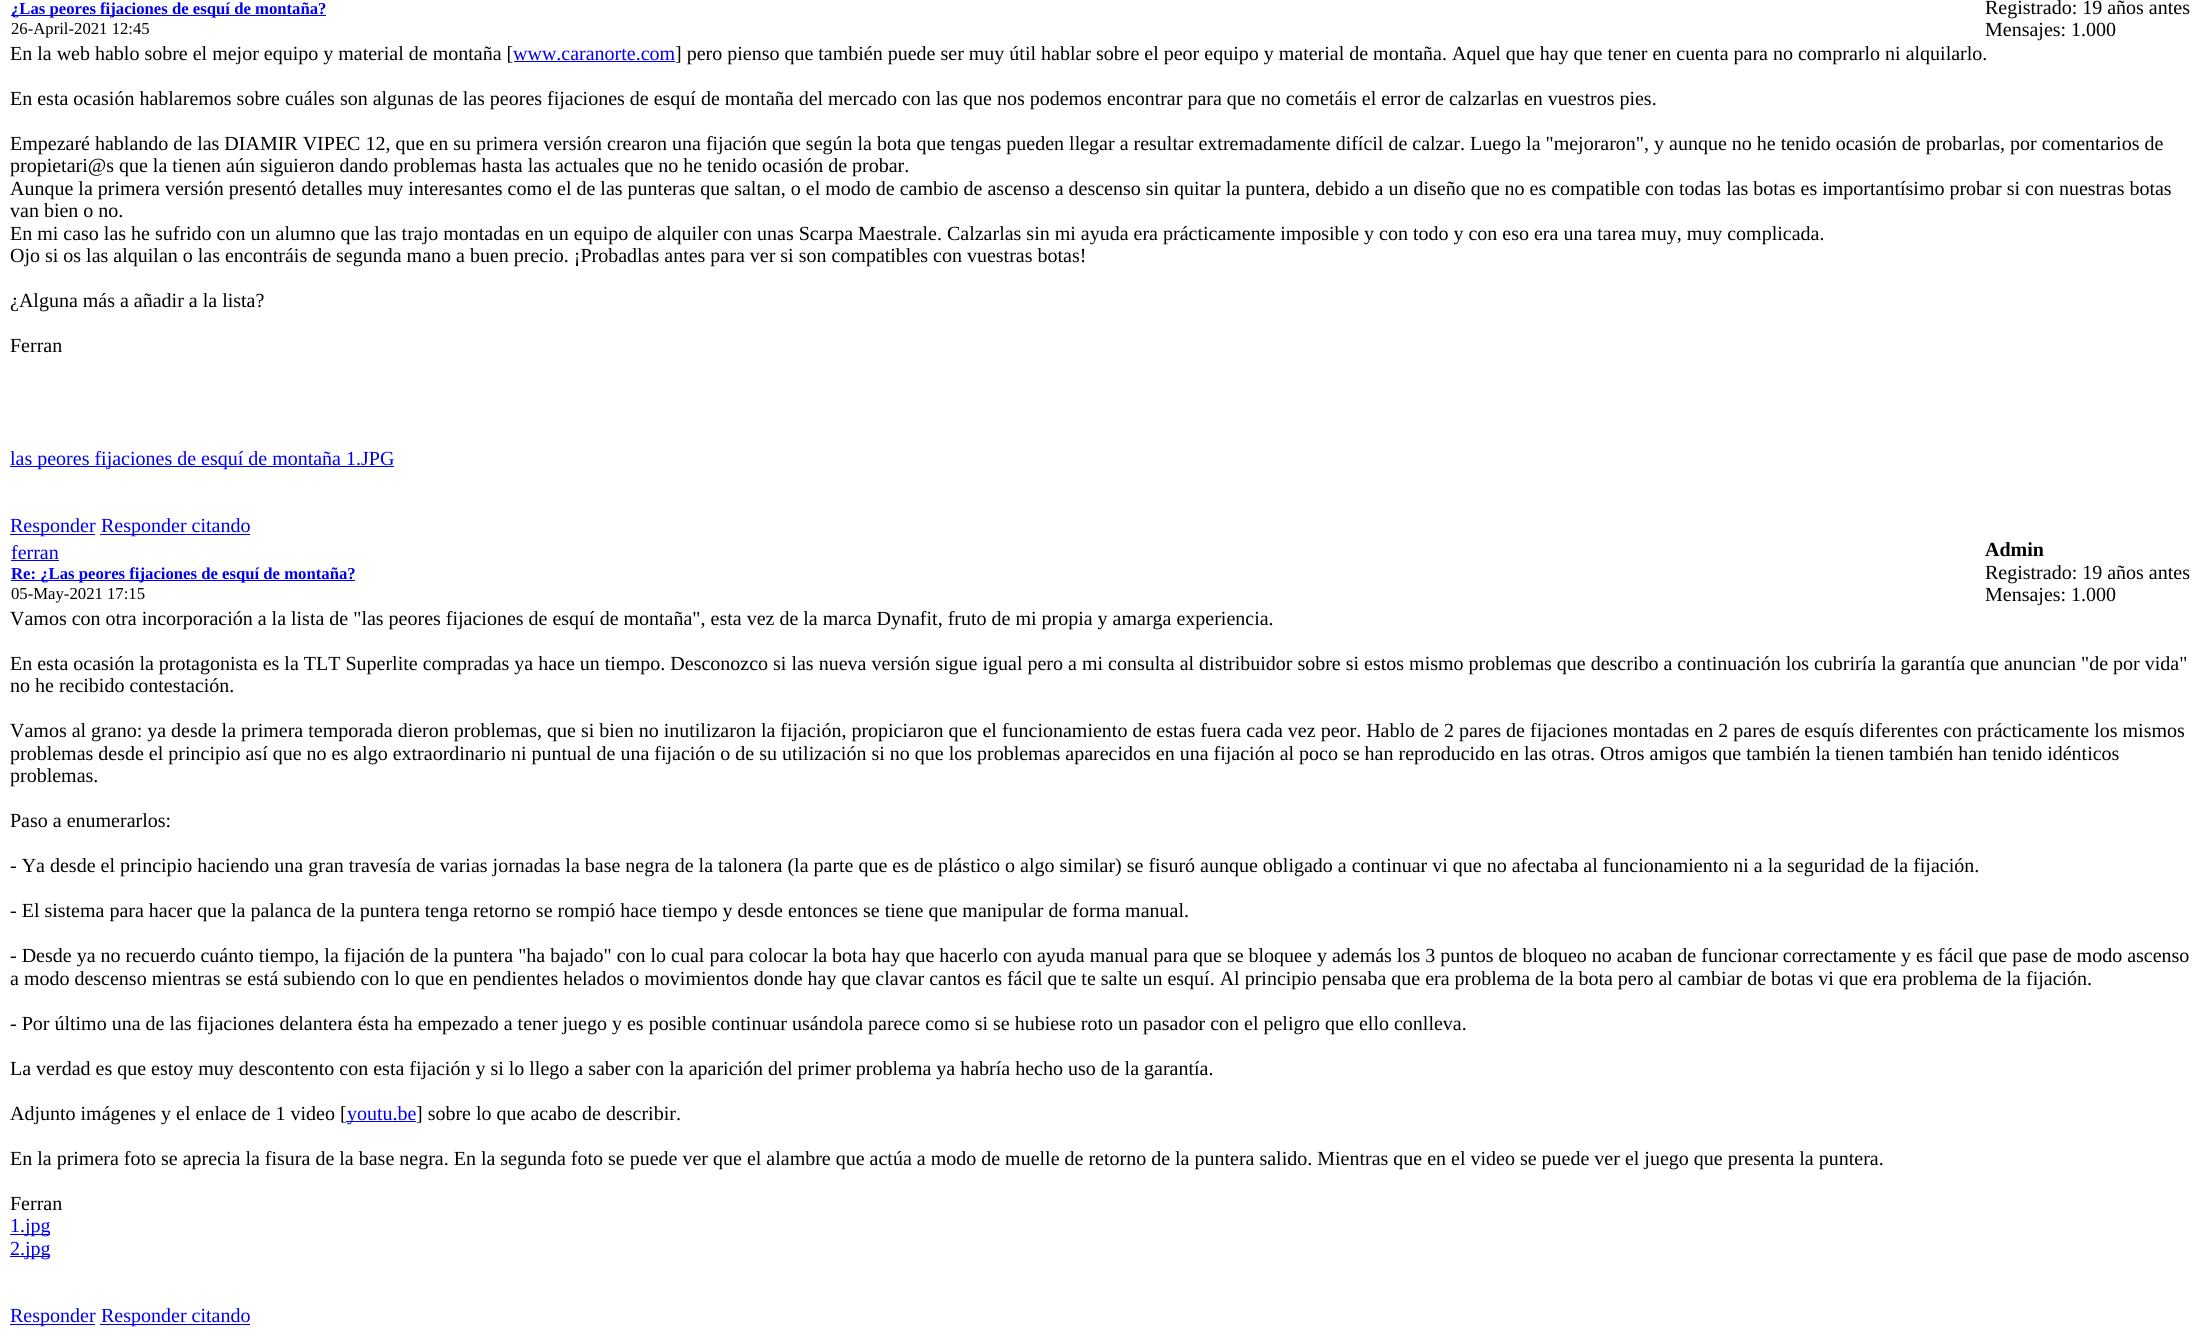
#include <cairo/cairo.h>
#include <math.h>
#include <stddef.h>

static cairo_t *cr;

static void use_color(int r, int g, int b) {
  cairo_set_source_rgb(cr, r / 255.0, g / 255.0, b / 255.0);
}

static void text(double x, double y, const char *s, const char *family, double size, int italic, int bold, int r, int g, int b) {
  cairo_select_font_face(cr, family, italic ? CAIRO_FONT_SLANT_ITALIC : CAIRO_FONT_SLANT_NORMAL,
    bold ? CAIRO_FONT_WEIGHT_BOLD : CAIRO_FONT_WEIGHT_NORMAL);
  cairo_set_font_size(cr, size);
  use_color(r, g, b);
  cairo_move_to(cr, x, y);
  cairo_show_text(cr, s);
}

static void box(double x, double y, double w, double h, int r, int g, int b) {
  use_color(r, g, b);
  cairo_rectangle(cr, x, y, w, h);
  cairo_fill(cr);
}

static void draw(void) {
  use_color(255, 255, 255);
  cairo_paint(cr);
  box(11, 15, 315, 1, 0, 0, 238);
  box(514, 61, 161, 1, 0, 0, 238);
  box(10, 466, 384, 1, 0, 0, 238);
  box(10, 534, 85, 1, 0, 0, 238);
  box(100, 534, 150, 1, 0, 0, 238);
  box(11, 560, 48, 1, 0, 0, 238);
  box(11, 580, 344, 1, 0, 0, 238);
  box(346, 1121, 70, 1, 0, 0, 238);
  box(10, 1234, 40, 1, 0, 0, 238);
  box(10, 1256, 40, 1, 0, 0, 238);
  box(10, 1324, 85, 1, 0, 0, 238);
  box(100, 1324, 150, 1, 0, 0, 238);
  text(11, 14, "¿Las peores fijaciones de esquí de montaña?", "Liberation Serif", 16.7, 0, 1, 0, 0, 238);
  text(11, 34, "26-April-2021 12:45", "Liberation Serif", 16.7, 0, 0, 0, 0, 0);
  text(1985, 14, "Registrado: 19 años antes", "Liberation Serif", 20, 0, 0, 0, 0, 0);
  text(1985, 36, "Mensajes: 1.000", "Liberation Serif", 20, 0, 0, 0, 0, 0);
  text(10, 60, "En la web hablo sobre el mejor equipo y material de montaña [", "Liberation Serif", 20, 0, 0, 0, 0, 0);
  text(513, 60, "www.caranorte.com", "Liberation Serif", 20, 0, 0, 0, 0, 238);
  text(675, 60, "] pero pienso que también puede ser muy útil hablar sobre el peor equipo y material de montaña. Aquel que hay que tener en cuenta para no comprarlo ni alquilarlo.", "Liberation Serif", 20, 0, 0, 0, 0, 0);
  text(10, 105, "En esta ocasión hablaremos sobre cuáles son algunas de las peores fijaciones de esquí de montaña del mercado con las que nos podemos encontrar para que no cometáis el error de calzarlas en vuestros pies.", "Liberation Serif", 20, 0, 0, 0, 0, 0);
  text(10, 150, "Empezaré hablando de las DIAMIR VIPEC 12, que en su primera versión crearon una fijación que según la bota que tengas pueden llegar a resultar extremadamente difícil de calzar. Luego la \"mejoraron\", y aunque no he tenido ocasión de probarlas, por comentarios de", "Liberation Serif", 20, 0, 0, 0, 0, 0);
  text(10, 172, "propietari@s que la tienen aún siguieron dando problemas hasta las actuales que no he tenido ocasión de probar.", "Liberation Serif", 20, 0, 0, 0, 0, 0);
  text(10, 195, "Aunque la primera versión presentó detalles muy interesantes como el de las punteras que saltan, o el modo de cambio de ascenso a descenso sin quitar la puntera, debido a un diseño que no es compatible con todas las botas es importantísimo probar si con nuestras botas", "Liberation Serif", 20, 0, 0, 0, 0, 0);
  text(10, 217, "van bien o no.", "Liberation Serif", 20, 0, 0, 0, 0, 0);
  text(10, 240, "En mi caso las he sufrido con un alumno que las trajo montadas en un equipo de alquiler con unas Scarpa Maestrale. Calzarlas sin mi ayuda era prácticamente imposible y con todo y con eso era una tarea muy, muy complicada.", "Liberation Serif", 20, 0, 0, 0, 0, 0);
  text(10, 262, "Ojo si os las alquilan o las encontráis de segunda mano a buen precio. ¡Probadlas antes para ver si son compatibles con vuestras botas!", "Liberation Serif", 20, 0, 0, 0, 0, 0);
  text(10, 307, "¿Alguna más a añadir a la lista?", "Liberation Serif", 20, 0, 0, 0, 0, 0);
  text(10, 352, "Ferran", "Liberation Serif", 20, 0, 0, 0, 0, 0);
  text(10, 465, "las peores fijaciones de esquí de montaña 1.JPG", "Liberation Serif", 20, 0, 0, 0, 0, 238);
  text(10, 532, "Responder", "Liberation Serif", 20, 0, 0, 0, 0, 238);
  text(101, 532, "Responder citando", "Liberation Serif", 20, 0, 0, 0, 0, 238);
  text(11, 559, "ferran", "Liberation Serif", 20, 0, 0, 0, 0, 238);
  text(11, 579, "Re: ¿Las peores fijaciones de esquí de montaña?", "Liberation Serif", 16.7, 0, 1, 0, 0, 238);
  text(11, 599, "05-May-2021 17:15", "Liberation Serif", 16.7, 0, 0, 0, 0, 0);
  text(1985, 556, "Admin", "Liberation Serif", 20, 0, 1, 0, 0, 0);
  text(1985, 579, "Registrado: 19 años antes", "Liberation Serif", 20, 0, 0, 0, 0, 0);
  text(1985, 601, "Mensajes: 1.000", "Liberation Serif", 20, 0, 0, 0, 0, 0);
  text(10, 625, "Vamos con otra incorporación a la lista de \"las peores fijaciones de esquí de montaña\", esta vez de la marca Dynafit, fruto de mi propia y amarga experiencia.", "Liberation Serif", 20, 0, 0, 0, 0, 0);
  text(10, 670, "En esta ocasión la protagonista es la TLT Superlite compradas ya hace un tiempo. Desconozco si las nueva versión sigue igual pero a mi consulta al distribuidor sobre si estos mismo problemas que describo a continuación los cubriría la garantía que anuncian \"de por vida\"", "Liberation Serif", 20, 0, 0, 0, 0, 0);
  text(10, 692, "no he recibido contestación.", "Liberation Serif", 20, 0, 0, 0, 0, 0);
  text(10, 737, "Vamos al grano: ya desde la primera temporada dieron problemas, que si bien no inutilizaron la fijación, propiciaron que el funcionamiento de estas fuera cada vez peor. Hablo de 2 pares de fijaciones montadas en 2 pares de esquís diferentes con prácticamente los mismos", "Liberation Serif", 20, 0, 0, 0, 0, 0);
  text(10, 760, "problemas desde el principio así que no es algo extraordinario ni puntual de una fijación o de su utilización si no que los problemas aparecidos en una fijación al poco se han reproducido en las otras. Otros amigos que también la tienen también han tenido idénticos", "Liberation Serif", 20, 0, 0, 0, 0, 0);
  text(10, 782, "problemas.", "Liberation Serif", 20, 0, 0, 0, 0, 0);
  text(10, 827, "Paso a enumerarlos:", "Liberation Serif", 20, 0, 0, 0, 0, 0);
  text(10, 872, "- Ya desde el principio haciendo una gran travesía de varias jornadas la base negra de la talonera (la parte que es de plástico o algo similar) se fisuró aunque obligado a continuar vi que no afectaba al funcionamiento ni a la seguridad de la fijación.", "Liberation Serif", 20, 0, 0, 0, 0, 0);
  text(10, 917, "- El sistema para hacer que la palanca de la puntera tenga retorno se rompió hace tiempo y desde entonces se tiene que manipular de forma manual.", "Liberation Serif", 20, 0, 0, 0, 0, 0);
  text(10, 962, "- Desde ya no recuerdo cuánto tiempo, la fijación de la puntera \"ha bajado\" con lo cual para colocar la bota hay que hacerlo con ayuda manual para que se bloquee y además los 3 puntos de bloqueo no acaban de funcionar correctamente y es fácil que pase de modo ascenso", "Liberation Serif", 20, 0, 0, 0, 0, 0);
  text(10, 985, "a modo descenso mientras se está subiendo con lo que en pendientes helados o movimientos donde hay que clavar cantos es fácil que te salte un esquí. Al principio pensaba que era problema de la bota pero al cambiar de botas vi que era problema de la fijación.", "Liberation Serif", 20, 0, 0, 0, 0, 0);
  text(10, 1030, "- Por último una de las fijaciones delantera ésta ha empezado a tener juego y es posible continuar usándola parece como si se hubiese roto un pasador con el peligro que ello conlleva.", "Liberation Serif", 20, 0, 0, 0, 0, 0);
  text(10, 1075, "La verdad es que estoy muy descontento con esta fijación y si lo llego a saber con la aparición del primer problema ya habría hecho uso de la garantía.", "Liberation Serif", 20, 0, 0, 0, 0, 0);
  text(10, 1120, "Adjunto imágenes y el enlace de 1 video [", "Liberation Serif", 20, 0, 0, 0, 0, 0);
  text(347, 1120, "youtu.be", "Liberation Serif", 20, 0, 0, 0, 0, 238);
  text(416, 1120, "] sobre lo que acabo de describir.", "Liberation Serif", 20, 0, 0, 0, 0, 0);
  text(10, 1165, "En la primera foto se aprecia la fisura de la base negra. En la segunda foto se puede ver que el alambre que actúa a modo de muelle de retorno de la puntera salido. Mientras que en el video se puede ver el juego que presenta la puntera.", "Liberation Serif", 20, 0, 0, 0, 0, 0);
  text(10, 1210, "Ferran", "Liberation Serif", 20, 0, 0, 0, 0, 0);
  text(10, 1232, "1.jpg", "Liberation Serif", 20, 0, 0, 0, 0, 238);
  text(10, 1255, "2.jpg", "Liberation Serif", 20, 0, 0, 0, 0, 238);
  text(10, 1322, "Responder", "Liberation Serif", 20, 0, 0, 0, 0, 238);
  text(101, 1322, "Responder citando", "Liberation Serif", 20, 0, 0, 0, 0, 238);
}

int main(void) {
  cairo_surface_t *surface = cairo_image_surface_create(CAIRO_FORMAT_RGB24, 2201, 1333);
  cr = cairo_create(surface);
  cairo_font_options_t *options = cairo_font_options_create();
  cairo_font_options_set_hint_metrics(options, CAIRO_HINT_METRICS_OFF);
  cairo_font_options_set_hint_style(options, CAIRO_HINT_STYLE_NONE);
  cairo_set_font_options(cr, options);
  cairo_set_miter_limit(cr, 4);
  draw();
  cairo_surface_write_to_png(surface, "out.png");
  cairo_font_options_destroy(options);
  cairo_destroy(cr);
  cairo_surface_destroy(surface);
  return 0;
}
